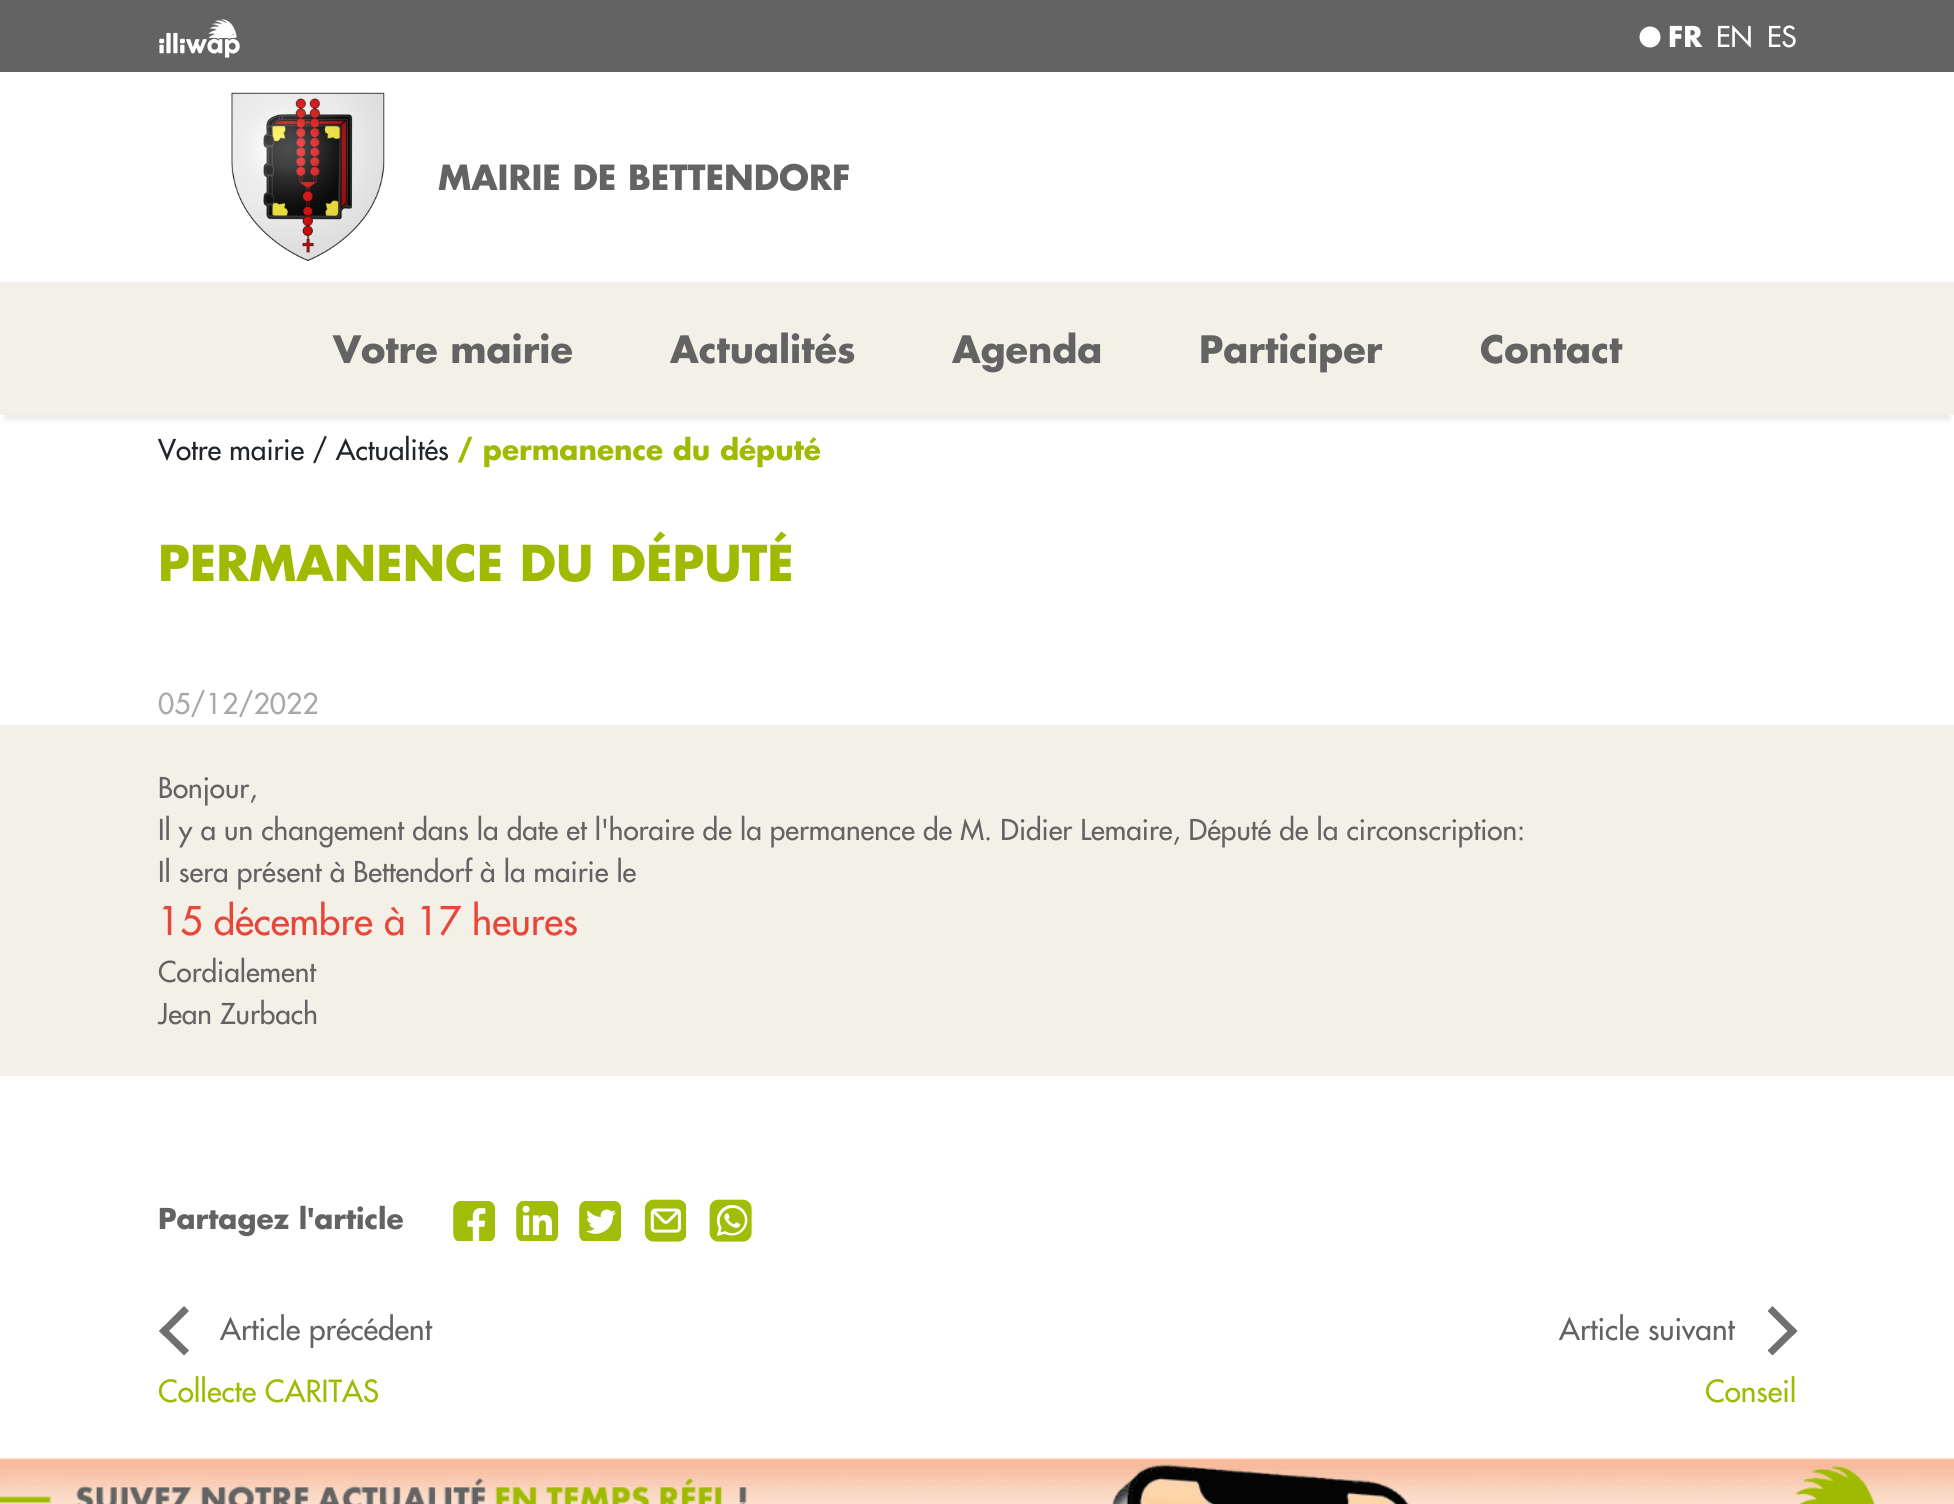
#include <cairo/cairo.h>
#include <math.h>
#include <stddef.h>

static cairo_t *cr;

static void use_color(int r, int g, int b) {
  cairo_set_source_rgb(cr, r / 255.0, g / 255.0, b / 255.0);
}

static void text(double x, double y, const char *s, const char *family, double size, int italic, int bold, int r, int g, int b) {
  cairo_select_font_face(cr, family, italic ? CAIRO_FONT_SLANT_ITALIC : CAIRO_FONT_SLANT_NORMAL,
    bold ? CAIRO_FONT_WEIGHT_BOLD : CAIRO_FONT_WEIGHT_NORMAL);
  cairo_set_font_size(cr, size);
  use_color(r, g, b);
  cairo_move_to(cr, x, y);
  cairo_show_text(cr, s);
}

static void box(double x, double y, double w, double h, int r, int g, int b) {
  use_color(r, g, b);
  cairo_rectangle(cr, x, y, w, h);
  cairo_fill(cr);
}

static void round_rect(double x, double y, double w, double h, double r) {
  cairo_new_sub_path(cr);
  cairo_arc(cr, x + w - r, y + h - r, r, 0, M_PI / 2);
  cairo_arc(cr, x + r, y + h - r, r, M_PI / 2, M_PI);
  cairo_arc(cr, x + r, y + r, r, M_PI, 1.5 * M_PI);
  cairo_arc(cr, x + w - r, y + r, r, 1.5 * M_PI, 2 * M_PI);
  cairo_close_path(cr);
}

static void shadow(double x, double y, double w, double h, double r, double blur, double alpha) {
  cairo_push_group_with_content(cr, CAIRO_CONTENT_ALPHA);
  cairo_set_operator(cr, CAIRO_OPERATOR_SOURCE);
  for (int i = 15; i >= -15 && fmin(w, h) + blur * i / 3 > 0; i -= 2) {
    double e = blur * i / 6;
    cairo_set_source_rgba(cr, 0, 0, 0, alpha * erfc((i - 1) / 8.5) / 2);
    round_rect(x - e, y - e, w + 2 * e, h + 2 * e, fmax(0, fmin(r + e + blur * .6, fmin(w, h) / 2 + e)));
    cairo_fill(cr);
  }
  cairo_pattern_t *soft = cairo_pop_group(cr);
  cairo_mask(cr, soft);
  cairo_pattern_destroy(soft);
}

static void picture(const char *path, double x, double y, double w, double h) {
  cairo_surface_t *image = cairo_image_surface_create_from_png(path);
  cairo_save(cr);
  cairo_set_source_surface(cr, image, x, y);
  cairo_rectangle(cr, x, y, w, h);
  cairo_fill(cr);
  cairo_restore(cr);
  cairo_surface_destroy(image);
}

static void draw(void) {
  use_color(255, 255, 255);
  cairo_paint(cr);
  use_color(0, 0, 0);
  shadow(5, 16, 1945, 404, 0, 2.5, 0.08);
  box(2, 72, 1951, 210, 255, 255, 255);
  box(0, 0, 1954, 72, 100, 99, 99);
  picture("img_01.png", 159, 19, 81, 39);
  use_color(255, 255, 255);
  cairo_arc(cr, 1650, 37, 10.5, 0, 2 * M_PI);
  cairo_fill(cr);
  picture("img_02.png", 231, 92, 154, 170);
  box(0, 282, 1954, 133, 243, 240, 232);
  box(0, 725, 1954, 351, 243, 240, 232);
  picture("img_03.png", 453, 1201, 42, 40);
  picture("img_04.png", 516, 1201, 42, 40);
  picture("img_05.png", 579, 1201, 42, 40);
  picture("img_06.png", 644, 1199, 42, 43);
  picture("img_07.png", 709, 1199, 43, 43);
  use_color(112, 112, 112);
  cairo_new_path(cr);
  cairo_move_to(cr, 184, 1355.5);
  cairo_line_to(cr, 159, 1331);
  cairo_line_to(cr, 164, 1326);
  cairo_line_to(cr, 189, 1350.5);
  cairo_close_path(cr);
  cairo_fill(cr);
  cairo_new_path(cr);
  cairo_move_to(cr, 159, 1331);
  cairo_line_to(cr, 184, 1306);
  cairo_line_to(cr, 189, 1311);
  cairo_line_to(cr, 164, 1336);
  cairo_close_path(cr);
  cairo_fill(cr);
  cairo_save(cr);
  cairo_rectangle(cr, 1768, 1306, 29, 50);
  cairo_clip(cr);
  cairo_new_path(cr);
  cairo_move_to(cr, 1772.5, 1306);
  cairo_line_to(cr, 1797.5, 1331);
  cairo_line_to(cr, 1792.5, 1336);
  cairo_line_to(cr, 1767.5, 1311);
  cairo_close_path(cr);
  cairo_fill(cr);
  cairo_new_path(cr);
  cairo_move_to(cr, 1797.5, 1331);
  cairo_line_to(cr, 1772.5, 1355.5);
  cairo_line_to(cr, 1767.5, 1350.5);
  cairo_line_to(cr, 1792.5, 1326);
  cairo_close_path(cr);
  cairo_fill(cr);
  cairo_restore(cr);
  picture("img_08.png", 0, 1457, 1954, 47);
  text(1668, 47, "FR", "Futura", 28, 0, 1, 255, 255, 255);
  text(1716, 47, "EN", "Futura", 28, 0, 0, 255, 255, 255);
  text(1767, 47, "ES", "Futura", 28, 0, 0, 255, 255, 255);
  text(438, 190, "MAIRIE DE BETTENDORF", "Futura", 33.75, 0, 1, 100, 99, 99);
  text(333, 363, "Votre mairie", "Futura", 36.75, 0, 1, 100, 99, 99);
  text(670, 363, "Actualités", "Futura", 36.75, 0, 1, 100, 99, 99);
  text(952, 363, "Agenda", "Futura", 36.75, 0, 1, 100, 99, 99);
  text(1199, 363, "Participer", "Futura", 36.75, 0, 1, 100, 99, 99);
  text(1480, 363, "Contact", "Futura", 36.75, 0, 1, 100, 99, 99);
  text(158, 460, "Votre mairie / Actualités", "Futura", 28, 0, 0, 33, 37, 41);
  text(457, 460, "/ permanence du député", "Futura", 28, 0, 1, 159, 186, 0);
  text(158, 581, "PERMANENCE DU DÉPUTÉ", "Futura", 48.1, 0, 1, 159, 186, 0);
  text(158, 714, "05/12/2022", "Futura", 28, 0, 0, 168, 168, 168);
  text(158, 798, "Bonjour,", "Futura", 28, 0, 0, 100, 99, 99);
  text(158, 840, "Il y a un changement dans la date et l'horaire de la permanence de M. Didier Lemaire, Député de la circonscription:", "Futura", 28, 0, 0, 100, 99, 99);
  text(158, 882, "Il sera présent à Bettendorf à la mairie le", "Futura", 28, 0, 0, 100, 99, 99);
  text(158, 935, "15 décembre à 17 heures", "Futura", 38.5, 0, 0, 233, 70, 58);
  text(158, 982, "Cordialement", "Futura", 28, 0, 0, 100, 99, 99);
  text(158, 1024, "Jean Zurbach", "Futura", 28, 0, 0, 100, 99, 99);
  text(158, 1229, "Partagez l'article", "Futura", 28, 0, 1, 100, 99, 99);
  text(220, 1340, "Article précédent", "Futura", 29.75, 0, 0, 100, 99, 99);
  text(1559, 1340, "Article suivant", "Futura", 29.75, 0, 0, 100, 99, 99);
  text(158, 1402, "Collecte CARITAS", "Futura", 29.75, 0, 0, 159, 186, 0);
  text(1705, 1402, "Conseil", "Futura", 29.75, 0, 0, 159, 186, 0);
}

int main(void) {
  cairo_surface_t *surface = cairo_image_surface_create(CAIRO_FORMAT_RGB24, 1954, 1504);
  cr = cairo_create(surface);
  cairo_font_options_t *options = cairo_font_options_create();
  cairo_font_options_set_hint_metrics(options, CAIRO_HINT_METRICS_OFF);
  cairo_font_options_set_hint_style(options, CAIRO_HINT_STYLE_NONE);
  cairo_set_font_options(cr, options);
  cairo_set_miter_limit(cr, 4);
  draw();
  cairo_surface_write_to_png(surface, "out.png");
  cairo_font_options_destroy(options);
  cairo_destroy(cr);
  cairo_surface_destroy(surface);
  return 0;
}
